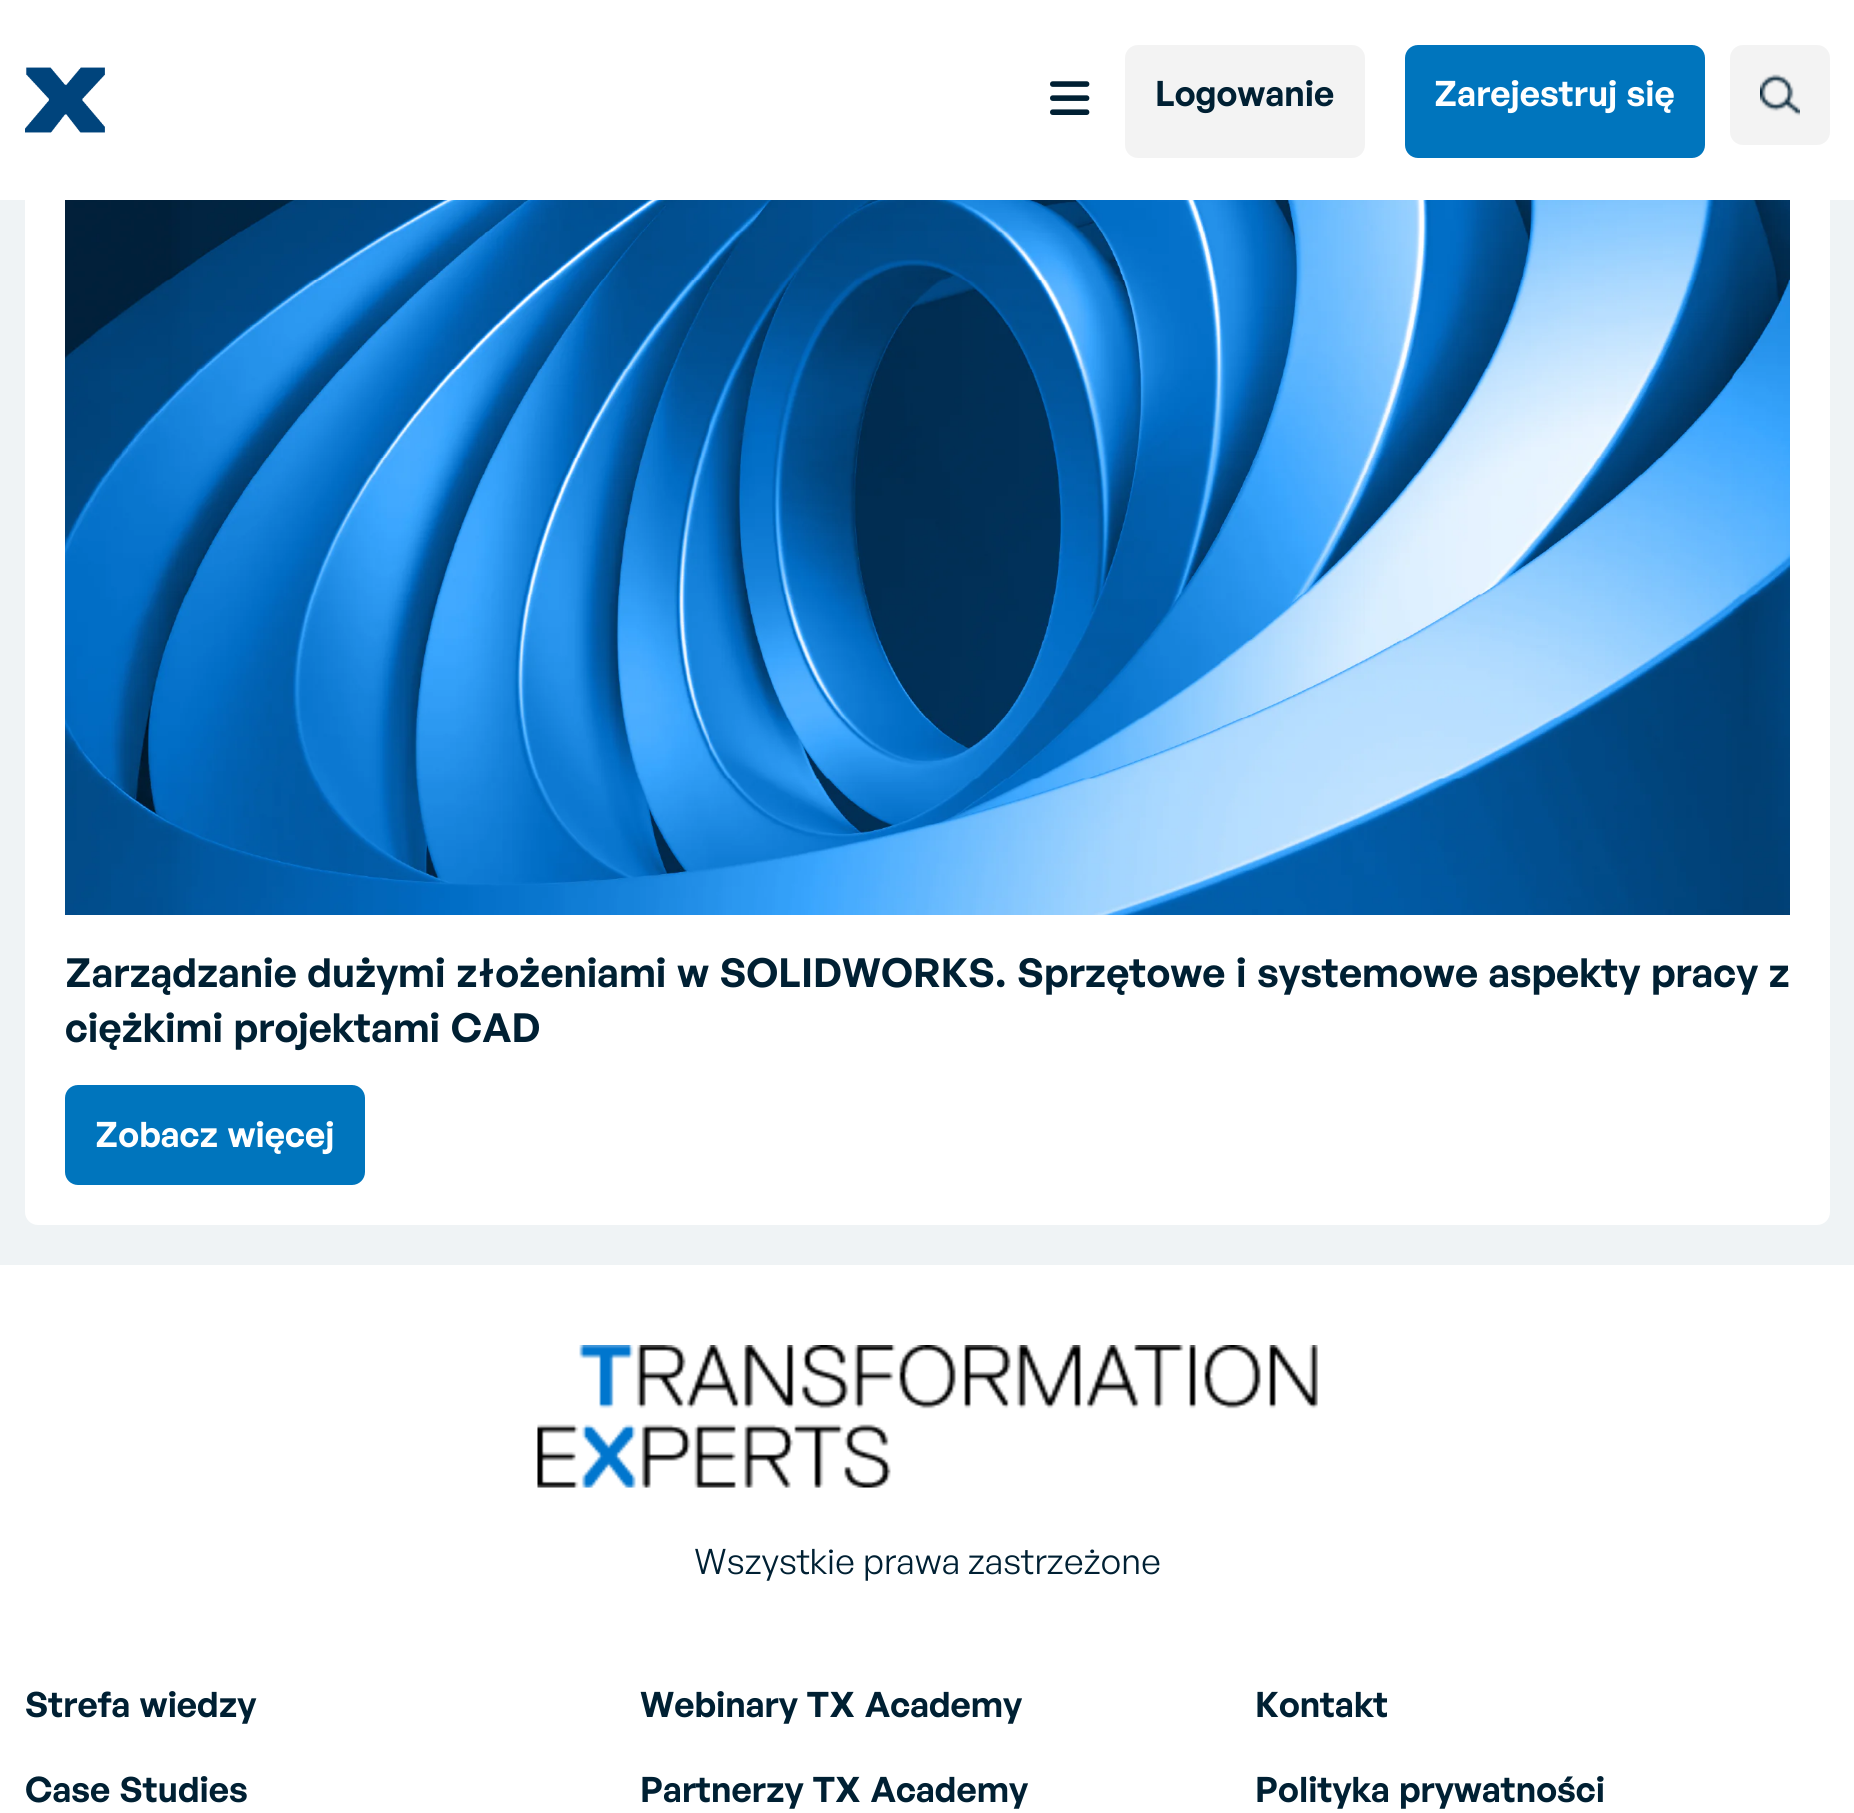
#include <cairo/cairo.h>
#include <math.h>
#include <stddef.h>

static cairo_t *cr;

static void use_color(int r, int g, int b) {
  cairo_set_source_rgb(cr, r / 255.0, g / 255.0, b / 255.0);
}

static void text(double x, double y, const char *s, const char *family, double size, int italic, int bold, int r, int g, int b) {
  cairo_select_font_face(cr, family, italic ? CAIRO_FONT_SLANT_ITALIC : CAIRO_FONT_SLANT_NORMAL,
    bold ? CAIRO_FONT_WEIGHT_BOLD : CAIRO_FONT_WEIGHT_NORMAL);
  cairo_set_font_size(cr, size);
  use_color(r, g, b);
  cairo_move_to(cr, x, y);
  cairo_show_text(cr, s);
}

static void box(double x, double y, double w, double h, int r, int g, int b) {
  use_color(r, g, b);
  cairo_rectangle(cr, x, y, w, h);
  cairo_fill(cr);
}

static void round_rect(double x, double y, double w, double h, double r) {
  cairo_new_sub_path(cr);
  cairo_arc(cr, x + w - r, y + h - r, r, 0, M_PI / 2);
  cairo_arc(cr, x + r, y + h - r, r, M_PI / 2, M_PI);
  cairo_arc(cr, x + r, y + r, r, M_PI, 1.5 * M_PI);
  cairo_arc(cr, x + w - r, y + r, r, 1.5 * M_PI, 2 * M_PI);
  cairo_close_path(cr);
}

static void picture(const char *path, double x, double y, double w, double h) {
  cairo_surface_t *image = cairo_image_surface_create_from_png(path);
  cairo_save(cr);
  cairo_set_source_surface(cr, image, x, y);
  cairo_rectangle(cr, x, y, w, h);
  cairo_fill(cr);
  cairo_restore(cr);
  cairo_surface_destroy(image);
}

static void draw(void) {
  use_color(239, 243, 245);
  cairo_paint(cr);
  use_color(255, 255, 255);
  round_rect(25, -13, 1805, 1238, 13);
  cairo_fill(cr);
  box(0, 0, 1854, 200, 255, 255, 255);
  picture("img_01.png", 25, 67, 80, 66);
  picture("img_02.png", 1050, 81, 40, 34);
  use_color(243, 243, 243);
  round_rect(1125, 45, 240, 113, 13);
  cairo_fill(cr);
  use_color(0, 117, 189);
  round_rect(1405, 45, 300, 113, 13);
  cairo_fill(cr);
  use_color(243, 243, 243);
  round_rect(1730, 45, 100, 100, 13);
  cairo_fill(cr);
  picture("img_03.png", 1760, 74, 40, 42);
  picture("img_04.png", 65, 200, 1725, 715);
  use_color(0, 117, 189);
  round_rect(65, 1085, 300, 100, 13);
  cairo_fill(cr);
  box(0, 1265, 1854, 548, 255, 255, 255);
  picture("img_05.png", 537, 1345, 781, 143);
  text(1155, 106, "Logowanie", "General Sans SemiBold", 35, 0, 0, 0, 32, 51);
  text(1434, 106, "Zarejestruj się", "General Sans SemiBold", 35, 0, 0, 255, 255, 255);
  text(65, 987, "Zarządzanie dużymi złożeniami w SOLIDWORKS. Sprzętowe i systemowe aspekty pracy z", "General Sans SemiBold", 40, 0, 0, 0, 32, 51);
  text(65, 1042, "ciężkimi projektami CAD", "General Sans SemiBold", 40, 0, 0, 0, 32, 51);
  text(95, 1147, "Zobacz więcej", "General Sans SemiBold", 35, 0, 0, 255, 255, 255);
  text(694, 1574, "Wszystkie prawa zastrzeżone", "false", 35, 0, 0, 0, 32, 51);
  text(25, 1717, "Strefa wiedzy", "General Sans SemiBold", 35, 0, 0, 0, 32, 51);
  text(640, 1717, "Webinary TX Academy", "General Sans SemiBold", 35, 0, 0, 0, 32, 51);
  text(1255, 1717, "Kontakt", "General Sans SemiBold", 35, 0, 0, 0, 32, 51);
  text(25, 1802, "Case Studies", "General Sans SemiBold", 35, 0, 0, 0, 32, 51);
  text(640, 1802, "Partnerzy TX Academy", "General Sans SemiBold", 35, 0, 0, 0, 32, 51);
  text(1255, 1802, "Polityka prywatności", "General Sans SemiBold", 35, 0, 0, 0, 32, 51);
}

int main(void) {
  cairo_surface_t *surface = cairo_image_surface_create(CAIRO_FORMAT_RGB24, 1854, 1813);
  cr = cairo_create(surface);
  cairo_font_options_t *options = cairo_font_options_create();
  cairo_font_options_set_hint_metrics(options, CAIRO_HINT_METRICS_OFF);
  cairo_font_options_set_hint_style(options, CAIRO_HINT_STYLE_NONE);
  cairo_set_font_options(cr, options);
  cairo_set_miter_limit(cr, 4);
  draw();
  cairo_surface_write_to_png(surface, "out.png");
  cairo_font_options_destroy(options);
  cairo_destroy(cr);
  cairo_surface_destroy(surface);
  return 0;
}
